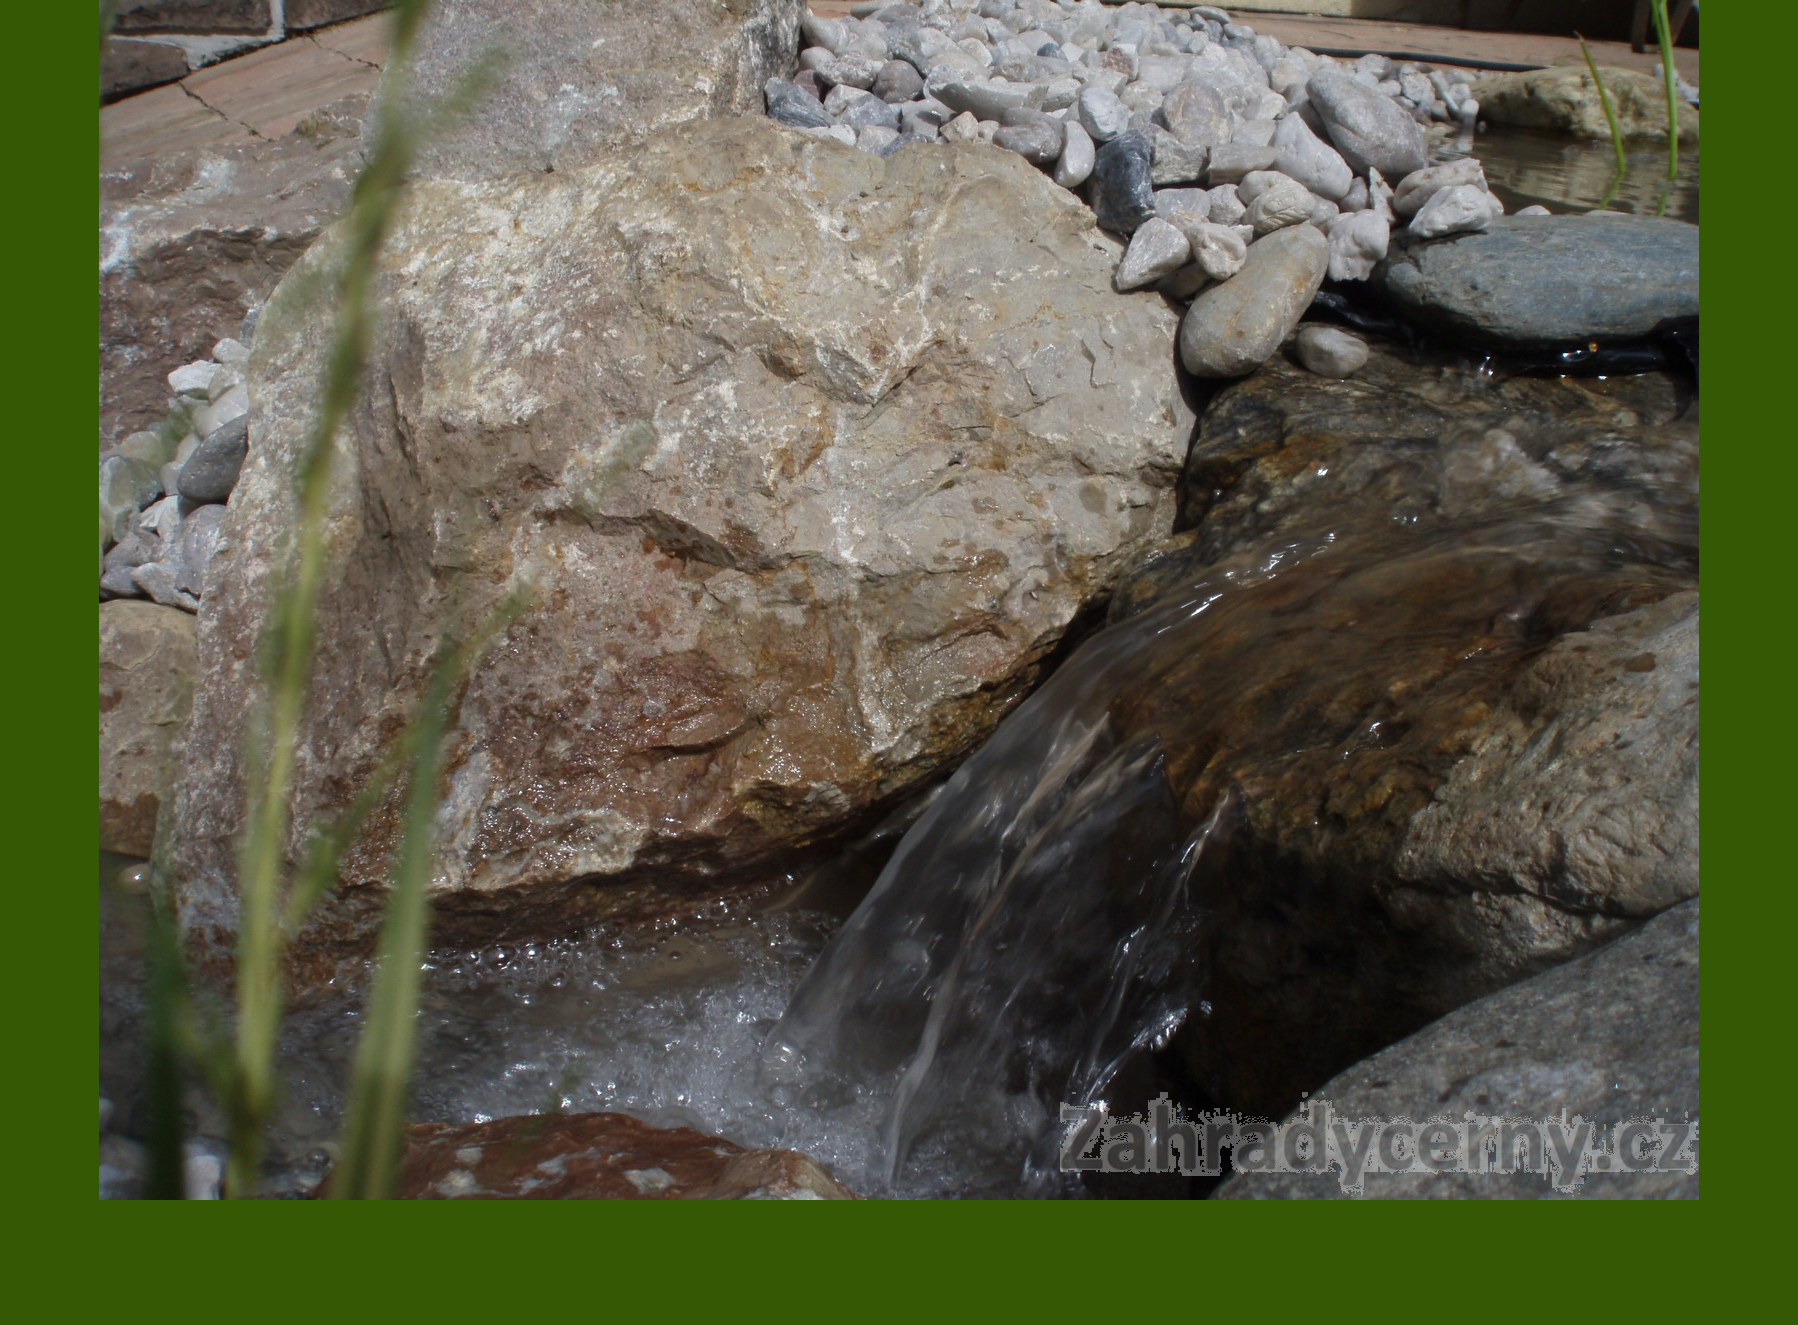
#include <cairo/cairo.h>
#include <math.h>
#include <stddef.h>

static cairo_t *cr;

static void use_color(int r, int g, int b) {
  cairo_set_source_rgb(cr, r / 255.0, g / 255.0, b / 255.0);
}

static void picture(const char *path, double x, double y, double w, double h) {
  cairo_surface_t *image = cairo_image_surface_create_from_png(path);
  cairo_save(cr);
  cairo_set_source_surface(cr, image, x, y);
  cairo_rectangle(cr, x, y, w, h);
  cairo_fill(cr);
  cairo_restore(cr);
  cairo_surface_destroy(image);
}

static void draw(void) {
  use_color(53, 88, 5);
  cairo_paint(cr);
  picture("img_01.png", 99, 0, 1600, 1200);
}

int main(void) {
  cairo_surface_t *surface = cairo_image_surface_create(CAIRO_FORMAT_RGB24, 1798, 1325);
  cr = cairo_create(surface);
  cairo_font_options_t *options = cairo_font_options_create();
  cairo_font_options_set_hint_metrics(options, CAIRO_HINT_METRICS_OFF);
  cairo_font_options_set_hint_style(options, CAIRO_HINT_STYLE_NONE);
  cairo_set_font_options(cr, options);
  cairo_set_miter_limit(cr, 4);
  draw();
  cairo_surface_write_to_png(surface, "out.png");
  cairo_font_options_destroy(options);
  cairo_destroy(cr);
  cairo_surface_destroy(surface);
  return 0;
}
